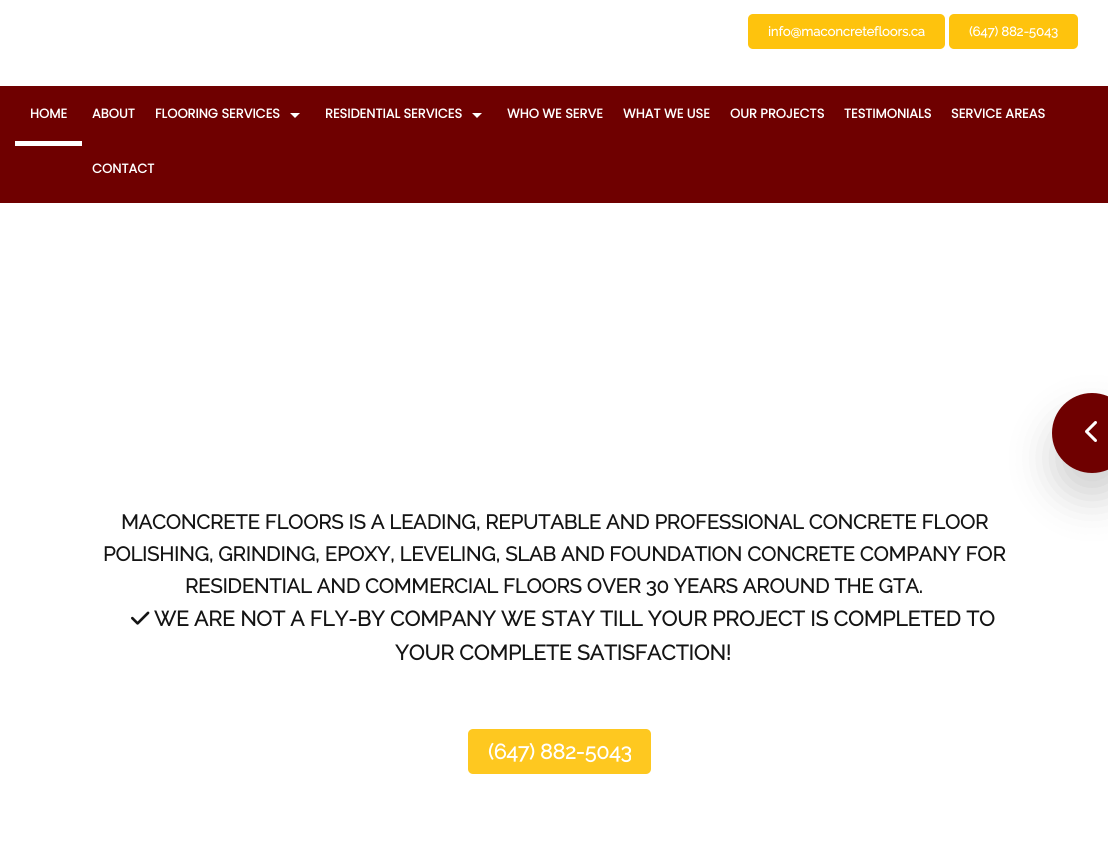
#include <cairo/cairo.h>
#include <math.h>
#include <stddef.h>

static cairo_t *cr;

static void use_color(int r, int g, int b) {
  cairo_set_source_rgb(cr, r / 255.0, g / 255.0, b / 255.0);
}

static void text(double x, double y, const char *s, const char *family, double size, int italic, int bold, int r, int g, int b) {
  cairo_select_font_face(cr, family, italic ? CAIRO_FONT_SLANT_ITALIC : CAIRO_FONT_SLANT_NORMAL,
    bold ? CAIRO_FONT_WEIGHT_BOLD : CAIRO_FONT_WEIGHT_NORMAL);
  cairo_set_font_size(cr, size);
  use_color(r, g, b);
  cairo_move_to(cr, x, y);
  cairo_show_text(cr, s);
}

static void box(double x, double y, double w, double h, int r, int g, int b) {
  use_color(r, g, b);
  cairo_rectangle(cr, x, y, w, h);
  cairo_fill(cr);
}

static void round_rect(double x, double y, double w, double h, double r) {
  cairo_new_sub_path(cr);
  cairo_arc(cr, x + w - r, y + h - r, r, 0, M_PI / 2);
  cairo_arc(cr, x + r, y + h - r, r, M_PI / 2, M_PI);
  cairo_arc(cr, x + r, y + r, r, M_PI, 1.5 * M_PI);
  cairo_arc(cr, x + w - r, y + r, r, 1.5 * M_PI, 2 * M_PI);
  cairo_close_path(cr);
}

static void shadow(double x, double y, double w, double h, double r, double blur, double alpha) {
  cairo_push_group_with_content(cr, CAIRO_CONTENT_ALPHA);
  cairo_set_operator(cr, CAIRO_OPERATOR_SOURCE);
  for (int i = 15; i >= -15 && fmin(w, h) + blur * i / 3 > 0; i -= 2) {
    double e = blur * i / 6;
    cairo_set_source_rgba(cr, 0, 0, 0, alpha * erfc((i - 1) / 8.5) / 2);
    round_rect(x - e, y - e, w + 2 * e, h + 2 * e, fmax(0, fmin(r + e + blur * .6, fmin(w, h) / 2 + e)));
    cairo_fill(cr);
  }
  cairo_pattern_t *soft = cairo_pop_group(cr);
  cairo_mask(cr, soft);
  cairo_pattern_destroy(soft);
}

static void picture(const char *path, double x, double y, double w, double h) {
  cairo_surface_t *image = cairo_image_surface_create_from_png(path);
  cairo_save(cr);
  cairo_set_source_surface(cr, image, x, y);
  cairo_rectangle(cr, x, y, w, h);
  cairo_fill(cr);
  cairo_restore(cr);
  cairo_surface_destroy(image);
}

static void draw(void) {
  use_color(255, 255, 255);
  cairo_paint(cr);
  use_color(254, 195, 13);
  round_rect(748, 14, 197, 35, 5);
  cairo_fill(cr);
  round_rect(949, 14, 129, 35, 5);
  cairo_fill(cr);
  box(0, 86, 1108, 117, 111, 0, 0);
  box(15, 141, 67, 5, 255, 255, 255);
  cairo_new_path(cr);
  cairo_move_to(cr, 290, 113);
  cairo_line_to(cr, 300, 113);
  cairo_line_to(cr, 295, 118);
  cairo_close_path(cr);
  cairo_fill(cr);
  cairo_new_path(cr);
  cairo_move_to(cr, 472, 113);
  cairo_line_to(cr, 482, 113);
  cairo_line_to(cr, 477, 118);
  cairo_close_path(cr);
  cairo_fill(cr);
  use_color(28, 28, 28);
  shadow(1052, 418, 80, 80, 40, 20, 0.2);
  use_color(111, 0, 0);
  cairo_arc(cr, 1092, 433, 40, 0, 2 * M_PI);
  cairo_fill(cr);
  picture("img_01.png", 1085, 421, 12, 21);
  picture("img_02.png", 131, 611, 19, 14);
  use_color(254, 200, 32);
  round_rect(468, 729, 183, 45, 5);
  cairo_fill(cr);
  text(768, 36, "info@maconcretefloors.ca", "Raleway", 13, 0, 1, 255, 255, 255);
  text(969, 36, "(647) 882-5043", "Raleway", 13, 0, 1, 255, 255, 255);
  text(30, 118, "HOME", "Poppins", 13, 0, 1, 255, 255, 255);
  text(92, 118, "ABOUT", "Poppins", 13, 0, 1, 255, 255, 255);
  text(155, 118, "FLOORING SERVICES", "Poppins", 13, 0, 1, 255, 255, 255);
  text(325, 118, "RESIDENTIAL SERVICES", "Poppins", 13, 0, 1, 255, 255, 255);
  text(507, 118, "WHO WE SERVE", "Poppins", 13, 0, 1, 255, 255, 255);
  text(623, 118, "WHAT WE USE", "Poppins", 13, 0, 1, 255, 255, 255);
  text(730, 118, "OUR PROJECTS", "Poppins", 13, 0, 1, 255, 255, 255);
  text(844, 118, "TESTIMONIALS", "Poppins", 13, 0, 1, 255, 255, 255);
  text(951, 118, "SERVICE AREAS", "Poppins", 13, 0, 1, 255, 255, 255);
  text(92, 173, "CONTACT", "Poppins", 13, 0, 1, 255, 255, 255);
  text(121, 529, "MACONCRETE FLOORS IS A LEADING, REPUTABLE AND PROFESSIONAL CONCRETE FLOOR", "Raleway", 20, 0, 1, 20, 20, 20);
  text(103, 561, "POLISHING, GRINDING, EPOXY, LEVELING, SLAB AND FOUNDATION CONCRETE COMPANY FOR", "Raleway", 20, 0, 1, 20, 20, 20);
  text(185, 593, "RESIDENTIAL AND COMMERCIAL FLOORS OVER 30 YEARS AROUND THE GTA.", "Raleway", 20, 0, 1, 20, 20, 20);
  text(154, 626, "WE ARE NOT A FLY-BY COMPANY WE STAY TILL YOUR PROJECT IS COMPLETED TO", "Raleway", 21, 0, 1, 20, 20, 20);
  text(395, 660, "YOUR COMPLETE SATISFACTION!", "Raleway", 21, 0, 1, 20, 20, 20);
  text(488, 759, "(647) 882-5043", "Raleway", 21, 0, 1, 255, 255, 255);
}

int main(void) {
  cairo_surface_t *surface = cairo_image_surface_create(CAIRO_FORMAT_RGB24, 1108, 864);
  cr = cairo_create(surface);
  cairo_font_options_t *options = cairo_font_options_create();
  cairo_font_options_set_hint_metrics(options, CAIRO_HINT_METRICS_OFF);
  cairo_font_options_set_hint_style(options, CAIRO_HINT_STYLE_NONE);
  cairo_set_font_options(cr, options);
  cairo_set_miter_limit(cr, 4);
  draw();
  cairo_surface_write_to_png(surface, "out.png");
  cairo_font_options_destroy(options);
  cairo_destroy(cr);
  cairo_surface_destroy(surface);
  return 0;
}
